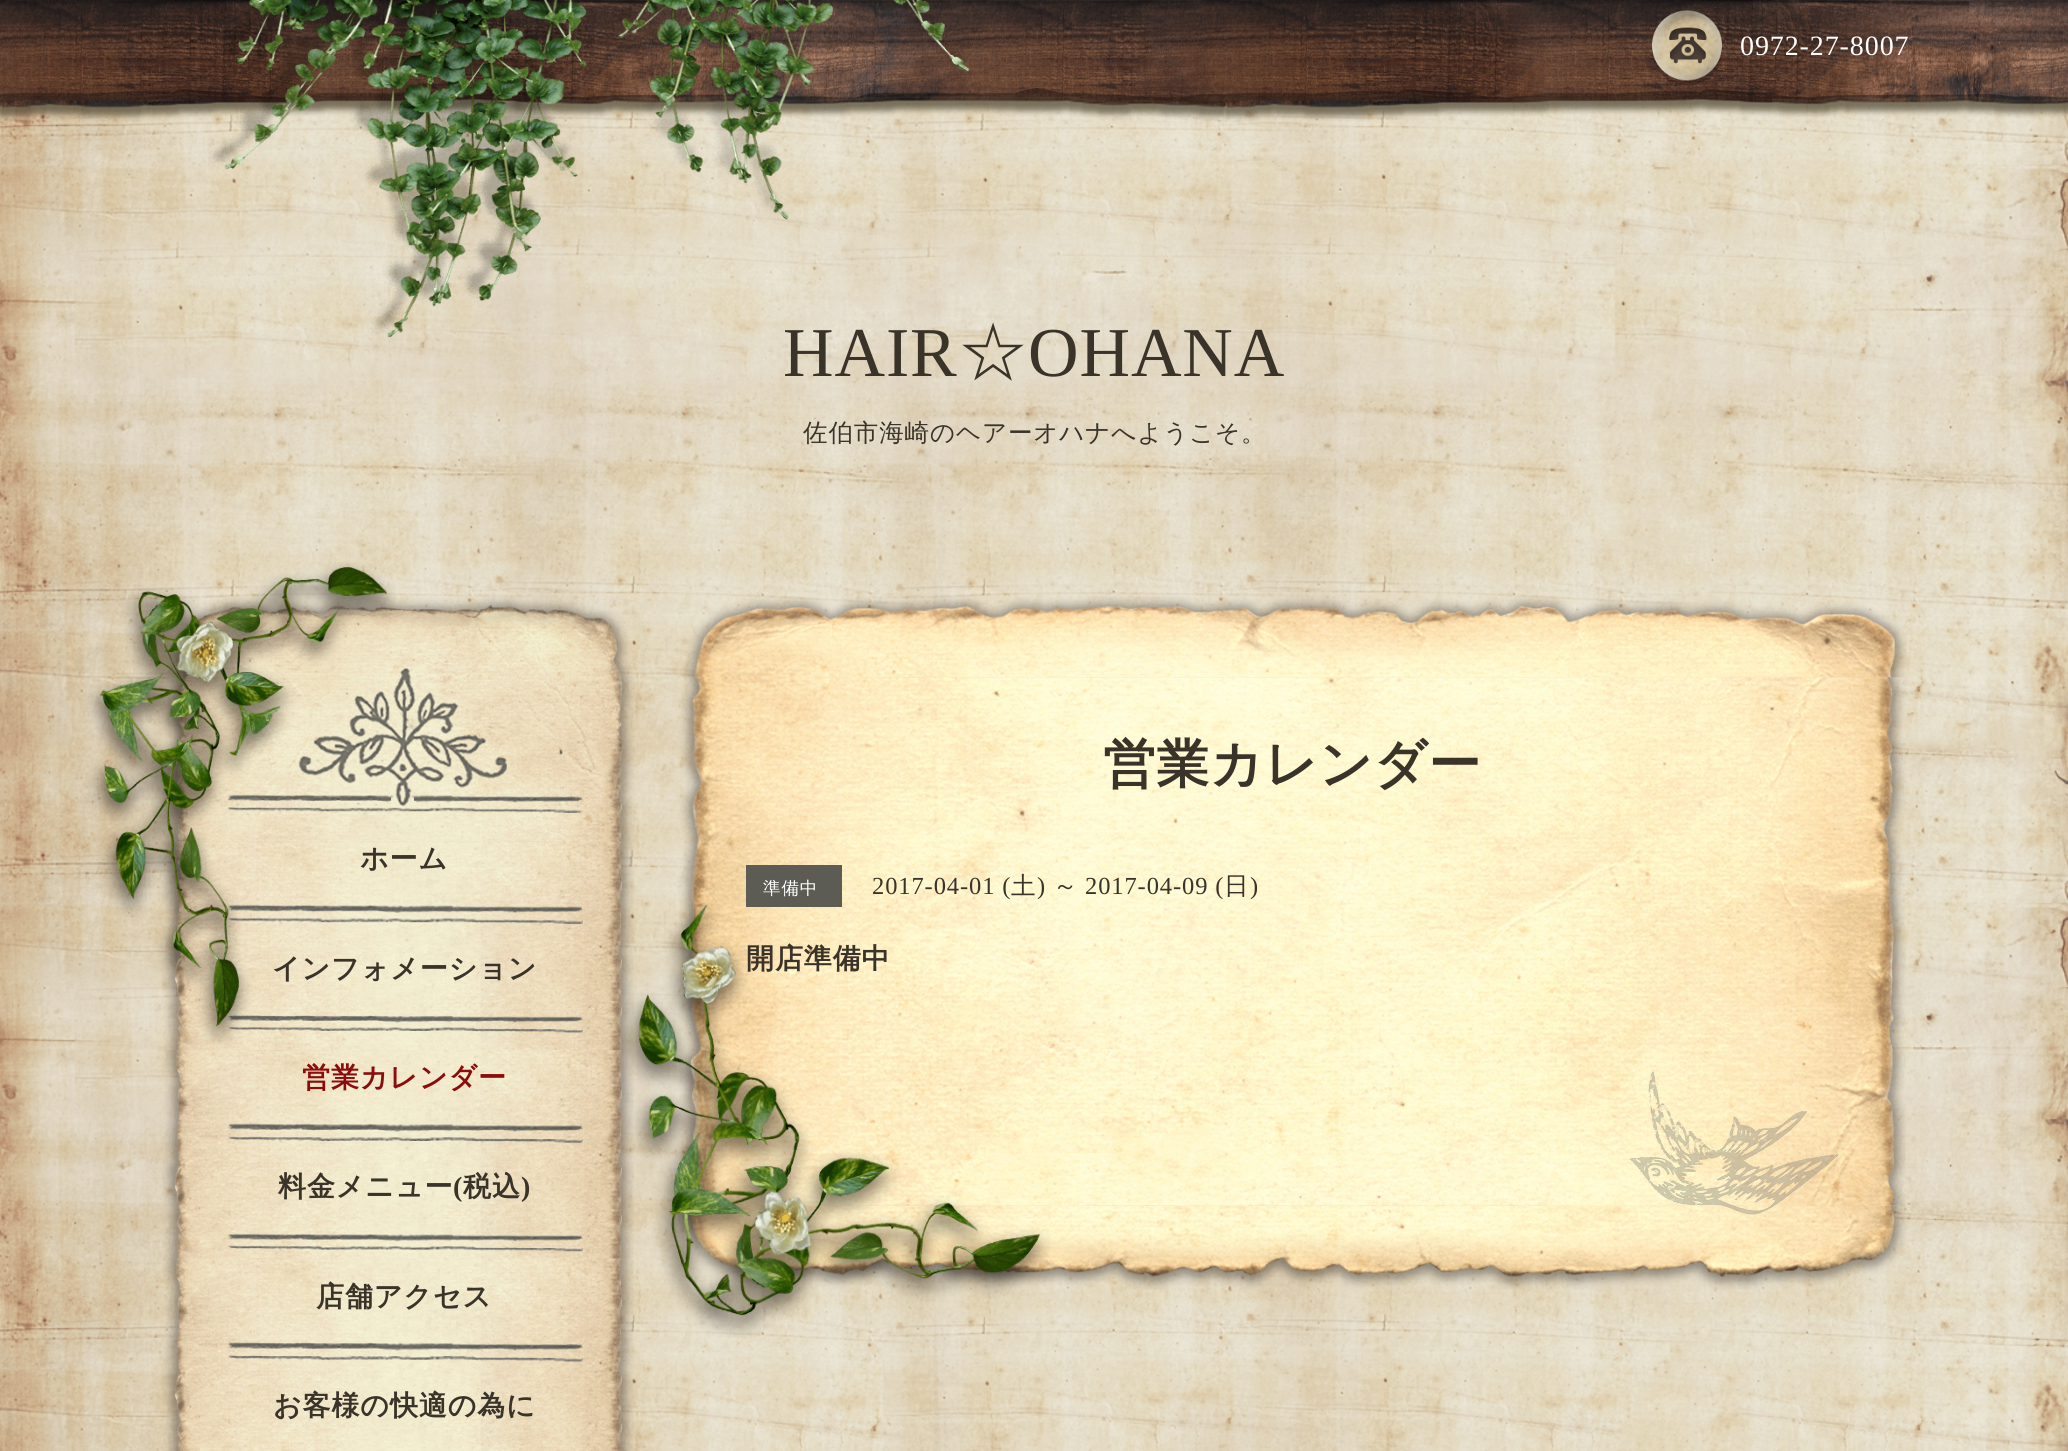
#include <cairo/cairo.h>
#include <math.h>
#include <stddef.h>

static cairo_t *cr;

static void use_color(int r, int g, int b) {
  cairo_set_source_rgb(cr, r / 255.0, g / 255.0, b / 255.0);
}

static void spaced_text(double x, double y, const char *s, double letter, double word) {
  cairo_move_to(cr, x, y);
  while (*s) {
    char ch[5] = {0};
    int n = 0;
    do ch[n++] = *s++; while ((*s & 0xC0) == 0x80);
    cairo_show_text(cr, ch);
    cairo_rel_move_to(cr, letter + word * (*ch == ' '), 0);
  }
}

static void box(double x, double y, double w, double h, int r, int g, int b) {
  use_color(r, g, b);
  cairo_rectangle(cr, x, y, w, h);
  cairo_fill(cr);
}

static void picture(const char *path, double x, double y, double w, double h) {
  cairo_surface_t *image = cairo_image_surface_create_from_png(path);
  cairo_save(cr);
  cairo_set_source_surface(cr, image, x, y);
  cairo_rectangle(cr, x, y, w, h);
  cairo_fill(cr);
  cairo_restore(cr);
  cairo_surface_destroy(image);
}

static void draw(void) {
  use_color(255, 255, 255);
  cairo_paint(cr);
  picture("img_01.png", 2054, 380, 14, 844);
  picture("img_02.png", 0, 0, 2068, 1451);
  picture("img_03.png", 0, 0, 2068, 122);
  picture("img_04.png", 208, 0, 762, 338);
  picture("img_05.png", 1652, 10, 70, 76);
  picture("img_06.png", 163, 596, 472, 246);
  picture("img_14.png", 678, 596, 1229, 694);
  picture("img_15.png", 679, 677, 1227, 529);
  box(746, 865, 96, 42, 92, 92, 85);
  picture("img_17.png", 1629, 1071, 211, 144);
  cairo_select_font_face(cr, "Liberation Serif", CAIRO_FONT_SLANT_NORMAL, CAIRO_FONT_WEIGHT_NORMAL);
  cairo_set_font_size(cr, 28);
  use_color(255, 255, 255);
  spaced_text(1740, 55, "0972-27-8007", 0.9, 0);
  cairo_set_font_size(cr, 70);
  use_color(58, 51, 41);
  spaced_text(783, 376, "HAIR", 0.9, 0);
  cairo_select_font_face(cr, "WenQuanYi Zen Hei Medium", CAIRO_FONT_SLANT_NORMAL, CAIRO_FONT_WEIGHT_NORMAL);
  spaced_text(958, 376, "☆", 0.9, 0);
  cairo_select_font_face(cr, "Liberation Serif", CAIRO_FONT_SLANT_NORMAL, CAIRO_FONT_WEIGHT_NORMAL);
  spaced_text(1028, 376, "OHANA", 0.9, 0);
  cairo_select_font_face(cr, "WenQuanYi Zen Hei Medium", CAIRO_FONT_SLANT_NORMAL, CAIRO_FONT_WEIGHT_NORMAL);
  cairo_set_font_size(cr, 24.5);
  spaced_text(803, 441, "佐伯市海崎のヘアーオハナへようこそ。", 0.9, 0);
  cairo_select_font_face(cr, "WenQuanYi Zen Hei", CAIRO_FONT_SLANT_NORMAL, CAIRO_FONT_WEIGHT_BOLD);
  cairo_set_font_size(cr, 52.5);
  spaced_text(1103, 782, "営業カレンダー", 0.9, 0);
  cairo_select_font_face(cr, "WenQuanYi Zen Hei Medium", CAIRO_FONT_SLANT_NORMAL, CAIRO_FONT_WEIGHT_NORMAL);
  cairo_set_font_size(cr, 17.5);
  use_color(255, 255, 255);
  spaced_text(763, 894, "準備中", 0.9, 0);
  cairo_select_font_face(cr, "Liberation Serif", CAIRO_FONT_SLANT_NORMAL, CAIRO_FONT_WEIGHT_NORMAL);
  cairo_set_font_size(cr, 24.5);
  use_color(58, 51, 41);
  spaced_text(872, 894, "2017-04-01 (", 0.9, 0);
  cairo_select_font_face(cr, "WenQuanYi Zen Hei Medium", CAIRO_FONT_SLANT_NORMAL, CAIRO_FONT_WEIGHT_NORMAL);
  spaced_text(1011, 894, "土", 0.9, 0);
  cairo_select_font_face(cr, "Liberation Serif", CAIRO_FONT_SLANT_NORMAL, CAIRO_FONT_WEIGHT_NORMAL);
  spaced_text(1037, 894, ")", 0.9, 0);
  cairo_select_font_face(cr, "WenQuanYi Zen Hei Medium", CAIRO_FONT_SLANT_NORMAL, CAIRO_FONT_WEIGHT_NORMAL);
  spaced_text(1053, 894, "～", 0.9, 0);
  cairo_select_font_face(cr, "Liberation Serif", CAIRO_FONT_SLANT_NORMAL, CAIRO_FONT_WEIGHT_NORMAL);
  spaced_text(1085, 894, "2017-04-09 (", 0.9, 0);
  cairo_select_font_face(cr, "WenQuanYi Zen Hei Medium", CAIRO_FONT_SLANT_NORMAL, CAIRO_FONT_WEIGHT_NORMAL);
  spaced_text(1224, 894, "日", 0.9, 0);
  cairo_select_font_face(cr, "Liberation Serif", CAIRO_FONT_SLANT_NORMAL, CAIRO_FONT_WEIGHT_NORMAL);
  spaced_text(1250, 894, ")", 0.9, 0);
  cairo_select_font_face(cr, "WenQuanYi Zen Hei", CAIRO_FONT_SLANT_NORMAL, CAIRO_FONT_WEIGHT_BOLD);
  cairo_set_font_size(cr, 28);
  spaced_text(746, 968, "開店準備中", 0.9, 0);
  picture("img_16.png", 622, 903, 428, 435);
  picture("img_08.png", 162, 841, 472, 610);
  spaced_text(273, 1415, "お客様の快適の為に", 0.9, 0);
  spaced_text(316, 1306, "店舗アクセス", 0.9, 0);
  cairo_select_font_face(cr, "Liberation Serif", CAIRO_FONT_SLANT_NORMAL, CAIRO_FONT_WEIGHT_BOLD);
  spaced_text(521, 1196, ")", 0.9, 0);
  cairo_select_font_face(cr, "WenQuanYi Zen Hei", CAIRO_FONT_SLANT_NORMAL, CAIRO_FONT_WEIGHT_BOLD);
  spaced_text(463, 1196, "税込", 0.9, 0);
  cairo_select_font_face(cr, "Liberation Serif", CAIRO_FONT_SLANT_NORMAL, CAIRO_FONT_WEIGHT_BOLD);
  spaced_text(453, 1196, "(", 0.9, 0);
  cairo_select_font_face(cr, "WenQuanYi Zen Hei", CAIRO_FONT_SLANT_NORMAL, CAIRO_FONT_WEIGHT_BOLD);
  spaced_text(278, 1196, "料金メニュー", 0.9, 0);
  use_color(139, 12, 12);
  spaced_text(302, 1087, "営業カレンダー", 0.9, 0);
  picture("img_10.png", 228, 1015, 355, 18);
  picture("img_09.png", 228, 904, 355, 20);
  picture("img_07.png", 75, 562, 321, 483);
  use_color(58, 51, 41);
  spaced_text(272, 978, "インフォメーション", 0.9, 0);
  spaced_text(360, 868, "ホーム", 0.9, 0);
  picture("img_13.png", 228, 1342, 355, 20);
  picture("img_12.png", 228, 1233, 355, 19);
  picture("img_11.png", 228, 1123, 355, 20);
}

int main(void) {
  cairo_surface_t *surface = cairo_image_surface_create(CAIRO_FORMAT_RGB24, 2068, 1451);
  cr = cairo_create(surface);
  cairo_font_options_t *options = cairo_font_options_create();
  cairo_font_options_set_hint_metrics(options, CAIRO_HINT_METRICS_OFF);
  cairo_font_options_set_hint_style(options, CAIRO_HINT_STYLE_NONE);
  cairo_set_font_options(cr, options);
  cairo_set_miter_limit(cr, 4);
  draw();
  cairo_surface_write_to_png(surface, "out.png");
  cairo_font_options_destroy(options);
  cairo_destroy(cr);
  cairo_surface_destroy(surface);
  return 0;
}
